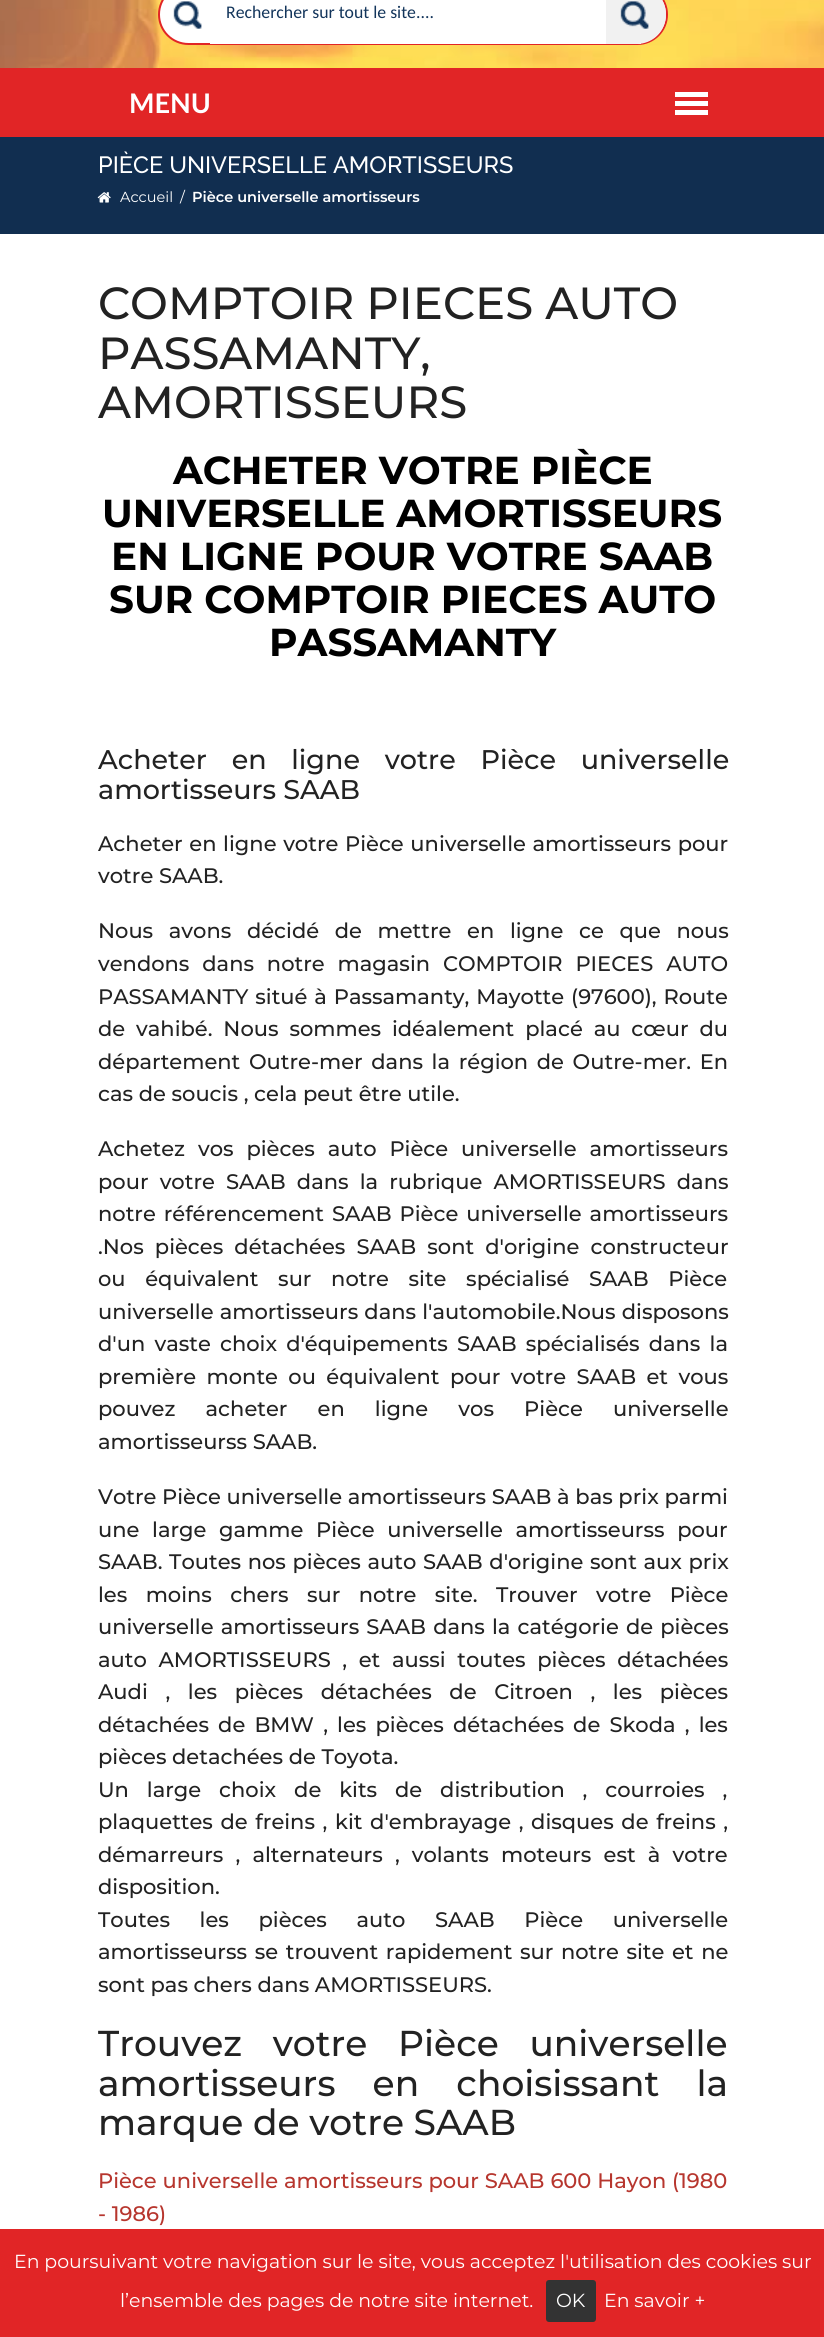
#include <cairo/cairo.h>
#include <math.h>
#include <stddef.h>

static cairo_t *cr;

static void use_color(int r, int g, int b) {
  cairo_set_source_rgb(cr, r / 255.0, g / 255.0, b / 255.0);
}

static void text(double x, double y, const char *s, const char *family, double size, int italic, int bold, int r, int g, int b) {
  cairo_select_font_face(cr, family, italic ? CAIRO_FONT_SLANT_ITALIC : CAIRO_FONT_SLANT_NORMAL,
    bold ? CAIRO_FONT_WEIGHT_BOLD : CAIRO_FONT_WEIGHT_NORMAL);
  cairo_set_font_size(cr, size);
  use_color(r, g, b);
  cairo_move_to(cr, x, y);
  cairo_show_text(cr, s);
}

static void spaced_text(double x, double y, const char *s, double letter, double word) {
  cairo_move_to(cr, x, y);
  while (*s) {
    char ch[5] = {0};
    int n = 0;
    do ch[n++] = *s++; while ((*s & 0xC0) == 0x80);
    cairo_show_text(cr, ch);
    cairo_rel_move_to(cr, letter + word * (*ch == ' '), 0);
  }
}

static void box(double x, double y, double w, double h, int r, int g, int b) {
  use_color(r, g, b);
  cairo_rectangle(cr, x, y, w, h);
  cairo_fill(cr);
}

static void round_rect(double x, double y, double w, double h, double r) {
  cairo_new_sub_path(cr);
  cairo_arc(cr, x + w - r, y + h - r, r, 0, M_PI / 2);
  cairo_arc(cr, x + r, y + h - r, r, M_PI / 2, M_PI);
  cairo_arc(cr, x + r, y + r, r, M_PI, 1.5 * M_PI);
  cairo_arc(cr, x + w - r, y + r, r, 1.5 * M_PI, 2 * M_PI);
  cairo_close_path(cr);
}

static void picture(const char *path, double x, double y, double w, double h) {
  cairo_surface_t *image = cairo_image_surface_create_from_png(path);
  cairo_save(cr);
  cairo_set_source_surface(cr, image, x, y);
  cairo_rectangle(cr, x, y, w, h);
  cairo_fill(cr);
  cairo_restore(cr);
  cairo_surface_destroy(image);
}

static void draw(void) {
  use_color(255, 255, 255);
  cairo_paint(cr);
  picture("img_01.png", 0, 0, 824, 68);
  use_color(255, 255, 255);
  round_rect(159, -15, 508, 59, 29.5);
  cairo_fill_preserve(cr);
  use_color(225, 37, 38);
  cairo_stroke(cr);
  picture("img_02.png", 173, 1, 29, 28);
  cairo_save(cr);
  cairo_rectangle(cr, 210, 0, 456, 45);
  cairo_clip(cr);
  use_color(255, 255, 255);
  cairo_new_path(cr);
  cairo_move_to(cr, 207, 44);
  cairo_line_to(cr, 207, -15);
  cairo_line_to(cr, 209, -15);
  cairo_line_to(cr, 209, 43);
  cairo_line_to(cr, 639, 43);
  cairo_line_to(cr, 639, -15);
  cairo_line_to(cr, 641, -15);
  cairo_line_to(cr, 641, 44);
  cairo_close_path(cr);
  cairo_fill(cr);
  cairo_restore(cr);
  use_color(241, 241, 241);
  cairo_new_path(cr);
  cairo_move_to(cr, 606, -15);
  cairo_line_to(cr, 636.5, -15);
  cairo_curve_to(cr, 653, -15, 666, -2, 666, 14.5);
  cairo_curve_to(cr, 666, 31, 653, 44, 636.5, 44);
  cairo_line_to(cr, 606, 44);
  cairo_close_path(cr);
  cairo_fill(cr);
  picture("img_03.png", 620, 1, 29, 28);
  box(0, 68, 824, 69, 225, 37, 38);
  box(675, 92, 33, 5, 255, 255, 255);
  box(675, 101, 33, 5, 255, 255, 255);
  box(675, 110, 33, 5, 255, 255, 255);
  box(0, 137, 824, 97, 17, 46, 80);
  picture("img_04.png", 97, 192, 14, 11);
  box(0, 2229, 824, 108, 225, 37, 38);
  use_color(51, 51, 51);
  round_rect(546, 2280, 50, 42, 3);
  cairo_fill(cr);
  text(226, 18, "Rechercher sur tout le site....", "Carlito", 17.75, 0, 0, 19, 53, 91);
  text(129, 113, "MENU", "Lato", 27, 0, 1, 255, 255, 255);
  text(98, 173, "PIÈCE UNIVERSELLE AMORTISSEURS", "Raleway Medium", 23.5, 0, 0, 255, 255, 255);
  text(120, 202, "Accueil", "Montserrat", 14.5, 0, 0, 255, 255, 255);
  text(180, 202, "/", "Montserrat", 14.5, 0, 0, 255, 255, 255);
  text(192, 202, "Pièce universelle amortisseurs", "Montserrat SemiBold", 14.5, 0, 0, 255, 255, 255);
  text(98, 319, "COMPTOIR PIECES AUTO", "Montserrat Medium", 45, 0, 0, 34, 34, 34);
  text(98, 369, "PASSAMANTY,", "Montserrat Medium", 45, 0, 0, 34, 34, 34);
  text(98, 418, "AMORTISSEURS", "Montserrat Medium", 45, 0, 0, 34, 34, 34);
  text(173, 484, "ACHETER VOTRE PIÈCE", "Montserrat", 39, 0, 1, 0, 0, 0);
  text(102, 527, "UNIVERSELLE AMORTISSEURS", "Montserrat", 39, 0, 1, 0, 0, 0);
  text(111, 570, "EN LIGNE POUR VOTRE SAAB", "Montserrat", 39, 0, 1, 0, 0, 0);
  text(109, 613, "SUR COMPTOIR PIECES AUTO", "Montserrat", 39, 0, 1, 0, 0, 0);
  text(269, 656, "PASSAMANTY", "Montserrat", 39, 0, 1, 0, 0, 0);
  cairo_select_font_face(cr, "Montserrat Medium", CAIRO_FONT_SLANT_NORMAL, CAIRO_FONT_WEIGHT_NORMAL);
  cairo_set_font_size(cr, 27);
  use_color(34, 34, 34);
  spaced_text(98, 769, "Acheter en ligne votre Pièce universelle", 0, 17.5);
  text(98, 799, "amortisseurs SAAB", "Montserrat Medium", 27, 0, 0, 34, 34, 34);
  cairo_set_font_size(cr, 21);
  spaced_text(98, 851, "Acheter en ligne votre Pièce universelle amortisseurs pour", 0, 1);
  text(98, 883, "votre SAAB.", "Montserrat Medium", 21, 0, 0, 34, 34, 34);
  spaced_text(98, 938, "Nous avons décidé de mettre en ligne ce que nous", 0, 10);
  spaced_text(98, 971, "vendons dans notre magasin COMPTOIR PIECES AUTO", 0, 7.25);
  spaced_text(98, 1004, "PASSAMANTY situé à Passamanty, Mayotte (97600), Route", 0, 1.25);
  spaced_text(98, 1036, "de vahibé. Nous sommes idéalement placé au cœur du", 0, 5.25);
  spaced_text(98, 1069, "département Outre-mer dans la région de Outre-mer. En", 0, 3);
  text(98, 1101, "cas de soucis , cela peut être utile.", "Montserrat Medium", 21, 0, 0, 34, 34, 34);
  spaced_text(98, 1156, "Achetez vos pièces auto Pièce universelle amortisseurs", 0, 7.25);
  spaced_text(98, 1189, "pour votre SAAB dans la rubrique AMORTISSEURS dans", 0, 5.5);
  spaced_text(98, 1221, "notre référencement SAAB Pièce universelle amortisseurs", 0, 2.25);
  spaced_text(98, 1254, ".Nos pièces détachées SAAB sont d'origine constructeur", 0, 5.5);
  spaced_text(98, 1286, "ou équivalent sur notre site spécialisé SAAB Pièce", 0, 14);
  spaced_text(98, 1319, "universelle amortisseurs dans l'automobile.Nous disposons", 0, 0.5);
  spaced_text(98, 1351, "d'un vaste choix d'équipements SAAB spécialisés dans la", 0, 3.5);
  spaced_text(98, 1384, "première monte ou équivalent pour votre SAAB et vous", 0, 4.75);
  spaced_text(98, 1416, "pouvez acheter en ligne vos Pièce universelle", 0, 24.5);
  text(98, 1449, "amortisseurss SAAB.", "Montserrat Medium", 21, 0, 0, 34, 34, 34);
  text(98, 1504, "Votre Pièce universelle amortisseurs SAAB à bas prix parmi", "Montserrat Medium", 21, 0, 0, 34, 34, 34);
  spaced_text(98, 1537, "une large gamme Pièce universelle amortisseurss pour", 0, 7);
  spaced_text(98, 1569, "SAAB. Toutes nos pièces auto SAAB d'origine sont aux prix", 0, 1);
  spaced_text(98, 1602, "les moins chers sur notre site. Trouver votre Pièce", 0, 12.75);
  spaced_text(98, 1634, "universelle amortisseurs SAAB dans la catégorie de pièces", 0, 1.5);
  spaced_text(98, 1667, "auto AMORTISSEURS , et aussi toutes pièces détachées", 0, 6);
  spaced_text(98, 1699, "Audi , les pièces détachées de Citroen , les pièces", 0, 12);
  spaced_text(98, 1732, "détachées de BMW , les pièces détachées de Skoda , les", 0, 3.5);
  text(98, 1764, "pièces detachées de Toyota.", "Montserrat Medium", 21, 0, 0, 34, 34, 34);
  spaced_text(98, 1797, "Un large choix de kits de distribution , courroies ,", 0, 12.25);
  spaced_text(98, 1829, "plaquettes de freins , kit d'embrayage , disques de freins ,", 0, 2);
  spaced_text(98, 1862, "démarreurs , alternateurs , volants moteurs est à votre", 0, 6.5);
  text(98, 1894, "disposition.", "Montserrat Medium", 21, 0, 0, 34, 34, 34);
  spaced_text(98, 1927, "Toutes les pièces auto SAAB Pièce universelle", 0, 24);
  spaced_text(98, 1959, "amortisseurss se trouvent rapidement sur notre site et ne", 0, 2);
  text(98, 1992, "sont pas chers dans AMORTISSEURS.", "Montserrat Medium", 21, 0, 0, 34, 34, 34);
  cairo_set_font_size(cr, 36);
  spaced_text(98, 2056, "Trouvez votre Pièce universelle", 0, 21);
  spaced_text(98, 2096, "amortisseurs en choisissant la", 0, 27.5);
  text(98, 2135, "marque de votre SAAB", "Montserrat Medium", 36, 0, 0, 34, 34, 34);
  cairo_set_font_size(cr, 21);
  use_color(183, 54, 46);
  spaced_text(98, 2188, "Pièce universelle amortisseurs pour SAAB 600 Hayon", 0, 0.25);
  text(672, 2188, "(1980", "Montserrat Medium", 21, 0, 0, 183, 54, 46);
  text(98, 2221, "- 1986)", "Montserrat Medium", 21, 0, 0, 183, 54, 46);
  text(14, 2268, "En poursuivant votre navigation sur le site, vous acceptez l'utilisation des cookies sur", "Montserrat", 18.9, 0, 0, 255, 255, 255);
  text(120, 2307, "l’ensemble des pages de notre site internet.", "Montserrat", 18.9, 0, 0, 255, 255, 255);
  text(556, 2307, "OK", "Montserrat", 18.9, 0, 0, 255, 255, 255);
  text(604, 2307, "En savoir +", "Montserrat", 18.9, 0, 0, 255, 255, 255);
}

int main(void) {
  cairo_surface_t *surface = cairo_image_surface_create(CAIRO_FORMAT_RGB24, 824, 2337);
  cr = cairo_create(surface);
  cairo_font_options_t *options = cairo_font_options_create();
  cairo_font_options_set_hint_metrics(options, CAIRO_HINT_METRICS_OFF);
  cairo_font_options_set_hint_style(options, CAIRO_HINT_STYLE_NONE);
  cairo_set_font_options(cr, options);
  cairo_set_miter_limit(cr, 4);
  draw();
  cairo_surface_write_to_png(surface, "out.png");
  cairo_font_options_destroy(options);
  cairo_destroy(cr);
  cairo_surface_destroy(surface);
  return 0;
}
